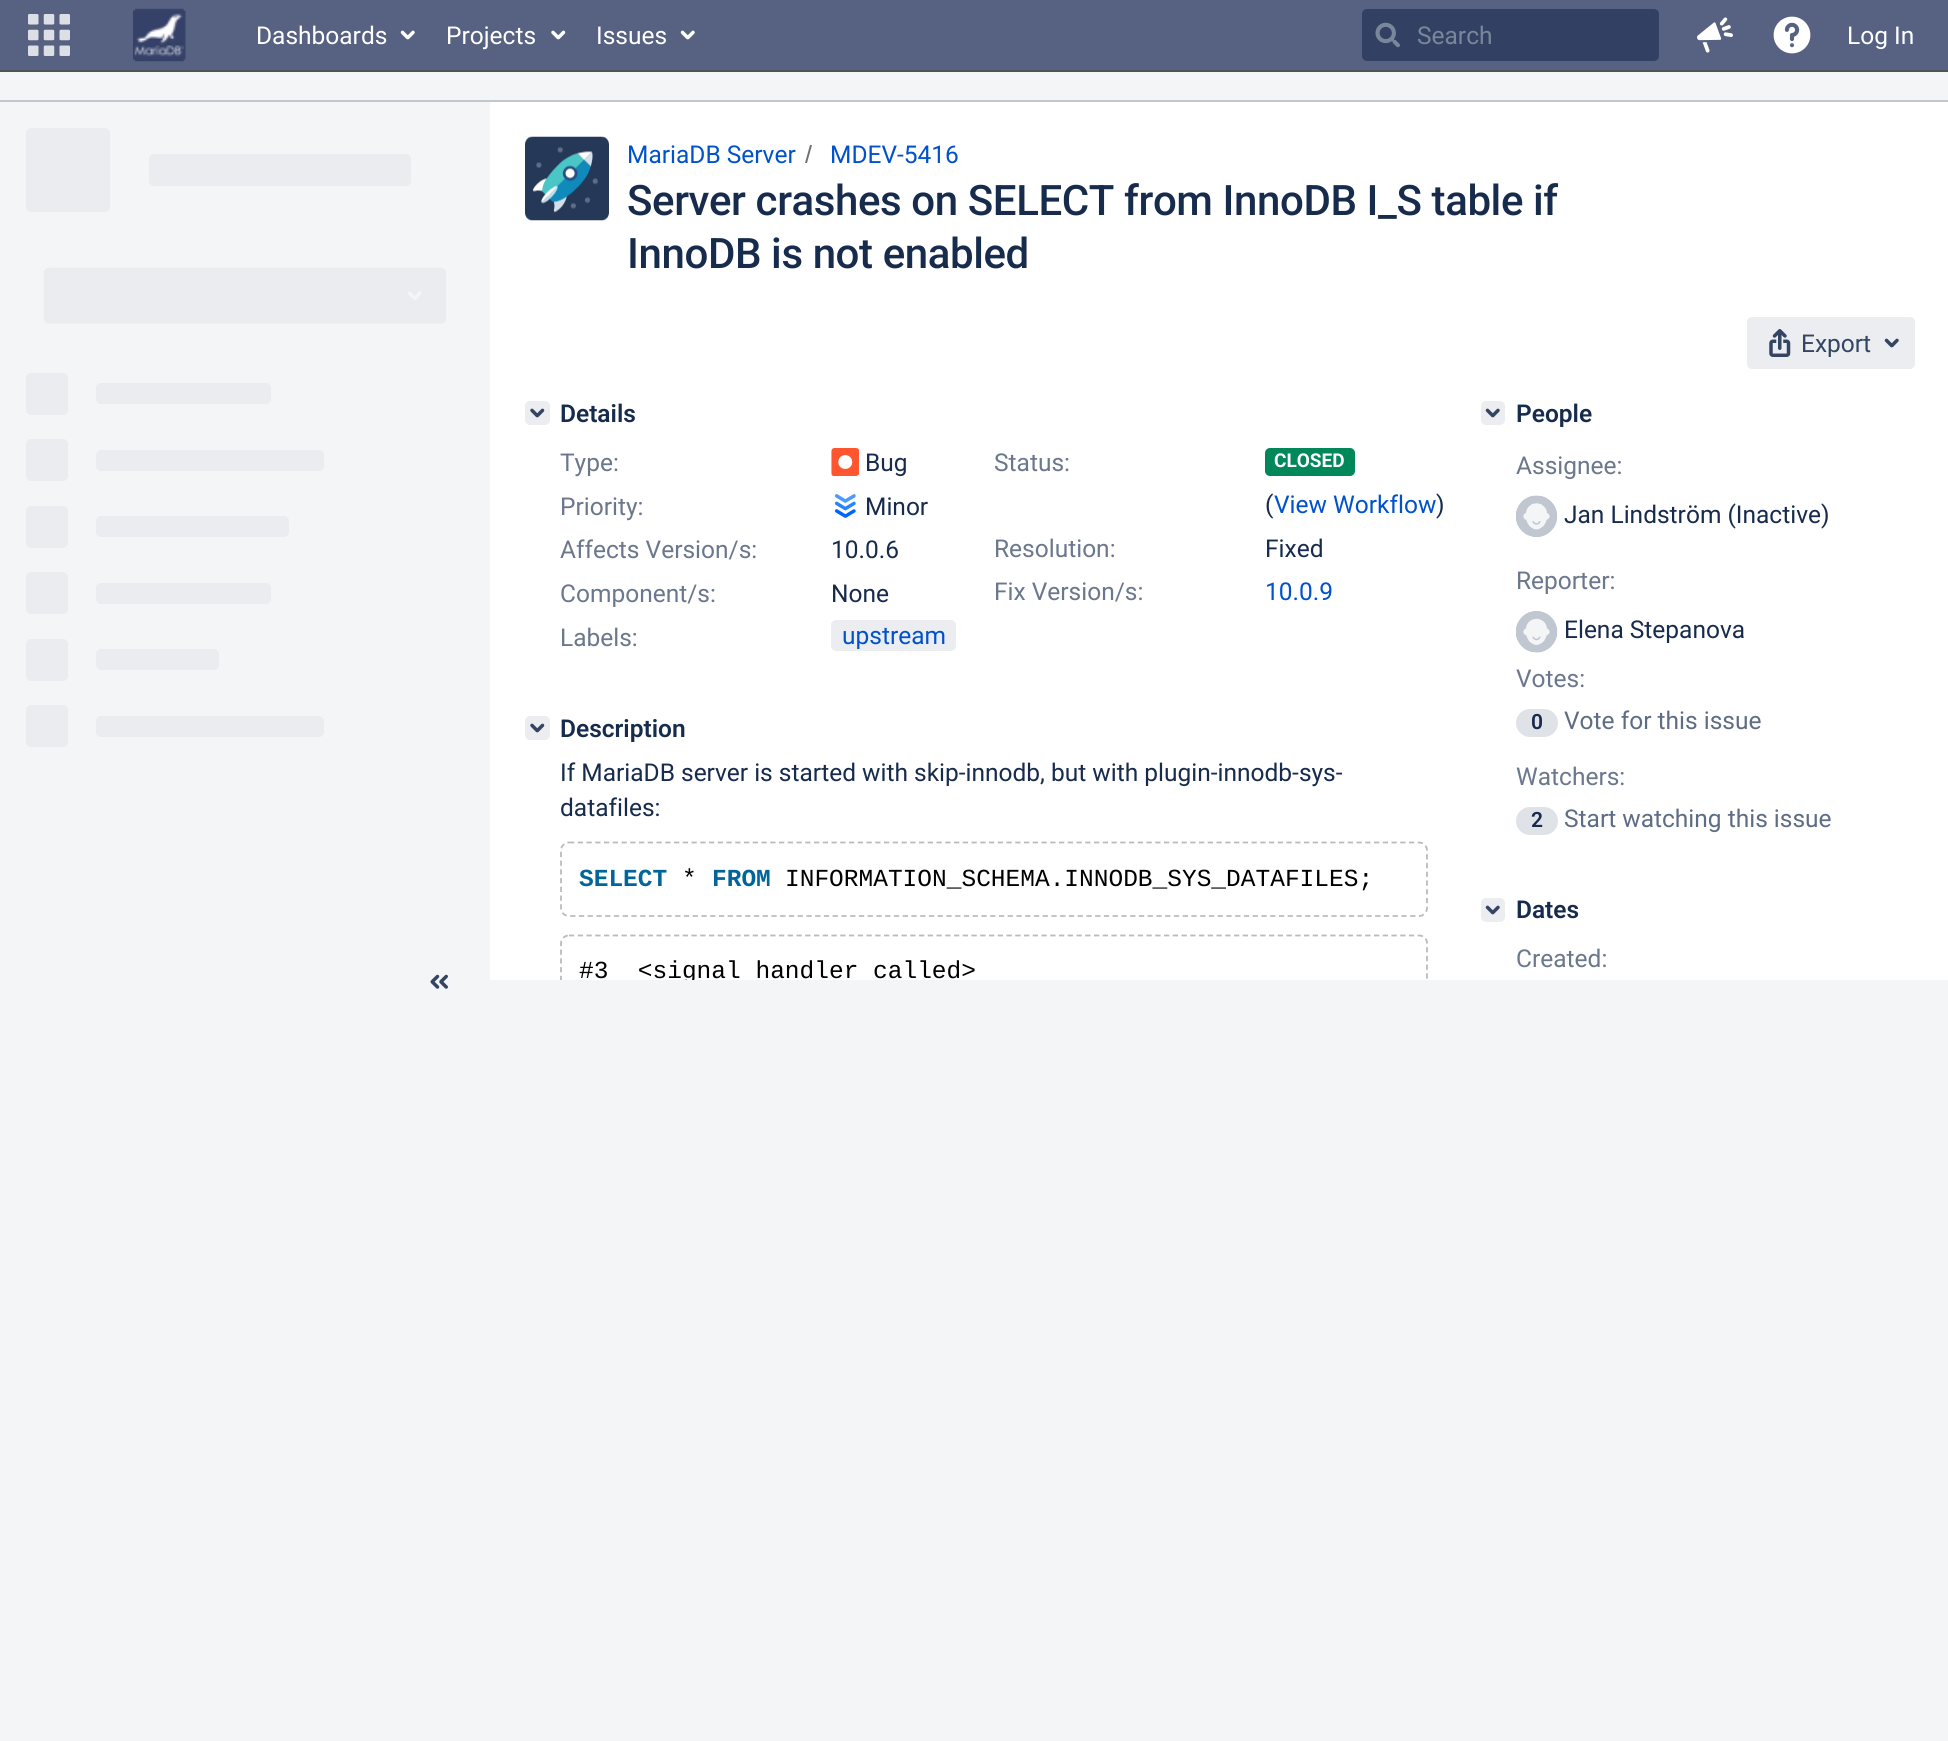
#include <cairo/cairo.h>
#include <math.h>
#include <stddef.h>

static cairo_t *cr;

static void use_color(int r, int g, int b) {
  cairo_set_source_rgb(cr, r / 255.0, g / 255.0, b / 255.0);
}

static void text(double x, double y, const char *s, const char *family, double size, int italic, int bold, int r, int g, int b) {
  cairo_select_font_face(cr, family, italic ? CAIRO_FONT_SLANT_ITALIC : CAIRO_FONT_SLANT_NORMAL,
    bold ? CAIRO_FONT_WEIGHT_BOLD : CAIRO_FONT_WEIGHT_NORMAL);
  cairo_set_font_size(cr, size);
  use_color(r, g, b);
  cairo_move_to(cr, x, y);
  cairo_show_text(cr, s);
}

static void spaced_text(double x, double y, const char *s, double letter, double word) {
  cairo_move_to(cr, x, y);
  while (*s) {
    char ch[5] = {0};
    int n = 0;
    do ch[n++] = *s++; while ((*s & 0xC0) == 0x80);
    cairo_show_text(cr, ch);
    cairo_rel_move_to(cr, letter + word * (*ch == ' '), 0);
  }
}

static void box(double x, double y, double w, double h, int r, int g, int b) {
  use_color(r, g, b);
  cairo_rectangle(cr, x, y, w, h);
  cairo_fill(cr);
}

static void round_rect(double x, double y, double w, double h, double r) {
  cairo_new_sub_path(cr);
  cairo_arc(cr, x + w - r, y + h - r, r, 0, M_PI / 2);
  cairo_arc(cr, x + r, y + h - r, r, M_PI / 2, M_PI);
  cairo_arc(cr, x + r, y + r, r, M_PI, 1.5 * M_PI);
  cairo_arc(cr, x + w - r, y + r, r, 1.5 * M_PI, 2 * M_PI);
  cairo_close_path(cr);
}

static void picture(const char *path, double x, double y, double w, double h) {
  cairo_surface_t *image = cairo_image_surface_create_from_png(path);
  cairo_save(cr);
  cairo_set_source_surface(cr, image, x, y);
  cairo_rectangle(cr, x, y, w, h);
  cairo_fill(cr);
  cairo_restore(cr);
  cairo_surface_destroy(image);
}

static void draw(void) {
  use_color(244, 245, 247);
  cairo_paint(cr);
  box(0, 0, 1948, 70, 87, 97, 129);
  box(0, 70, 1948, 2, 82, 82, 84);
  picture("img_01.png", 28, 14, 42, 42);
  picture("img_02.png", 133, 8, 53, 54);
  picture("img_03.png", 400, 30, 15, 10);
  picture("img_04.png", 551, 30, 15, 10);
  picture("img_03.png", 680, 30, 15, 10);
  use_color(50, 65, 99);
  round_rect(1362, 9, 297, 52, 5);
  cairo_fill(cr);
  picture("img_05.png", 1375, 22, 25, 26);
  picture("img_06.png", 1697, 17, 36, 36);
  picture("img_07.png", 1773, 16, 38, 38);
  box(0, 100, 1948, 2, 193, 199, 208);
  picture("img_08.png", 26, 128, 420, 619);
  picture("img_09.png", 430, 974, 18, 15);
  box(490, 102, 1458, 878, 255, 255, 255);
  picture("img_10.png", 525, 136, 84, 85);
  use_color(112, 112, 112);
  cairo_new_path(cr);
  cairo_move_to(cr, 807, 163);
  cairo_line_to(cr, 812, 145);
  cairo_line_to(cr, 810, 145);
  cairo_line_to(cr, 805, 163);
  cairo_close_path(cr);
  cairo_fill(cr);
  use_color(235, 237, 240);
  round_rect(1747, 317, 168, 52, 5);
  cairo_fill(cr);
  picture("img_11.png", 1769, 329, 22, 28);
  picture("img_12.png", 1884, 338, 15, 10);
  round_rect(525, 401, 25, 24, 5);
  cairo_fill(cr);
  picture("img_13.png", 530, 408, 15, 10);
  picture("img_14.png", 831, 448, 28, 28);
  use_color(0, 135, 90);
  round_rect(1265, 448, 90, 28, 5);
  cairo_fill(cr);
  picture("img_15.png", 834, 494, 22, 24);
  use_color(235, 237, 240);
  round_rect(831, 620, 125, 31, 5);
  cairo_fill(cr);
  round_rect(525, 716, 25, 24, 5);
  cairo_fill(cr);
  picture("img_13.png", 530, 723, 15, 10);
  cairo_new_path(cr);
  cairo_move_to(cr, 569, 842.5);
  cairo_line_to(cr, 1419, 842.5);
  cairo_curve_to(cr, 1423.5, 842.5, 1427, 846, 1427, 850.5);
  cairo_line_to(cr, 1427, 908);
  cairo_curve_to(cr, 1427, 912.5, 1423.5, 916, 1419, 916);
  cairo_line_to(cr, 569, 916);
  cairo_curve_to(cr, 564.5, 916, 561, 912.5, 561, 908);
  cairo_line_to(cr, 561, 850.5);
  cairo_curve_to(cr, 561, 846, 564.5, 842.5, 569, 842.5);
  cairo_close_path(cr);
  use_color(187, 187, 187);
  cairo_set_line_width(cr, 1.8);
  cairo_set_dash(cr, (double[]){5.25, 3.5}, 2, 0);
  cairo_stroke(cr);
  cairo_save(cr);
  cairo_rectangle(cr, 560, 754, 868, 226);
  cairo_clip(cr);
  cairo_new_path(cr);
  cairo_move_to(cr, 569, 935.5);
  cairo_line_to(cr, 1419, 935.5);
  cairo_curve_to(cr, 1423.5, 935.5, 1427, 939, 1427, 943);
  cairo_line_to(cr, 1427, 1664);
  cairo_curve_to(cr, 1427, 1668.5, 1423.5, 1672, 1419, 1672);
  cairo_line_to(cr, 569, 1672);
  cairo_curve_to(cr, 564.5, 1672, 561, 1668.5, 561, 1664);
  cairo_line_to(cr, 561, 943);
  cairo_curve_to(cr, 561, 939, 564.5, 935.5, 569, 935.5);
  cairo_close_path(cr);
  cairo_stroke(cr);
  cairo_restore(cr);
  use_color(235, 237, 240);
  round_rect(1481, 401, 24, 24, 5);
  cairo_fill(cr);
  picture("img_16.png", 1485, 408, 15, 10);
  picture("img_17.png", 1516, 495, 42, 42);
  picture("img_18.png", 1516, 611, 42, 42);
  use_color(223, 226, 230);
  round_rect(1516, 709, 42, 28, 14);
  cairo_fill(cr);
  round_rect(1516, 807, 42, 28, 14);
  cairo_fill(cr);
  use_color(235, 237, 240);
  round_rect(1481, 898, 24, 24, 5);
  cairo_fill(cr);
  picture("img_16.png", 1485, 905, 15, 10);
  text(256, 44, "Dashboards", "Roboto", 24.5, 0, 0, 255, 255, 255);
  text(446, 44, "Projects", "Roboto", 24.5, 0, 0, 255, 255, 255);
  text(596, 44, "Issues", "Roboto", 24.5, 0, 0, 255, 255, 255);
  text(1417, 44, "Search", "Roboto", 24.5, 0, 0, 122, 134, 154);
  text(1847, 44, "Log In", "Roboto", 24.5, 0, 0, 255, 255, 255);
  text(627, 163, "MariaDB Server", "Roboto", 24.5, 0, 0, 0, 82, 204);
  text(830, 163, "MDEV-5416", "Roboto", 24.5, 0, 0, 0, 82, 204);
  cairo_select_font_face(cr, "Roboto Medium", CAIRO_FONT_SLANT_NORMAL, CAIRO_FONT_WEIGHT_NORMAL);
  cairo_set_font_size(cr, 42);
  use_color(23, 43, 77);
  spaced_text(627, 215, "Server crashes on SELECT from InnoDB I_S table if", -0.4, 0);
  spaced_text(627, 268, "InnoDB is not enabled", -0.4, 0);
  text(1801, 352, "Export", "Roboto", 24.5, 0, 0, 52, 69, 99);
  text(560, 422, "Details", "Roboto SemiBold", 24.5, 0, 0, 23, 43, 77);
  text(560, 471, "Type:", "Roboto", 24.5, 0, 0, 107, 119, 140);
  text(865, 471, "Bug", "Roboto", 24.5, 0, 0, 23, 43, 77);
  text(994, 471, "Status:", "Roboto", 24.5, 0, 0, 107, 119, 140);
  text(1274, 467, "CLOSED", "Roboto", 19, 0, 1, 255, 255, 255);
  text(1265, 513, "(", "Roboto", 24.5, 0, 0, 23, 43, 77);
  text(1274, 513, "View Workflow", "Roboto", 24.5, 0, 0, 0, 82, 204);
  text(1436, 513, ")", "Roboto", 24.5, 0, 0, 23, 43, 77);
  text(560, 515, "Priority:", "Roboto", 24.5, 0, 0, 107, 119, 140);
  text(865, 515, "Minor", "Roboto", 24.5, 0, 0, 23, 43, 77);
  text(560, 558, "Affects Version/s:", "Roboto", 24.5, 0, 0, 107, 119, 140);
  text(831, 558, "10.0.6", "Roboto", 24.5, 0, 0, 23, 43, 77);
  text(994, 557, "Resolution:", "Roboto", 24.5, 0, 0, 107, 119, 140);
  text(1265, 557, "Fixed", "Roboto", 24.5, 0, 0, 23, 43, 77);
  text(560, 602, "Component/s:", "Roboto", 24.5, 0, 0, 107, 119, 140);
  text(831, 602, "None", "Roboto", 24.5, 0, 0, 23, 43, 77);
  text(994, 600, "Fix Version/s:", "Roboto", 24.5, 0, 0, 107, 119, 140);
  text(1265, 600, "10.0.9", "Roboto", 24.5, 0, 0, 0, 82, 204);
  text(560, 646, "Labels:", "Roboto", 24.5, 0, 0, 107, 119, 140);
  text(842, 644, "upstream", "Roboto", 24.5, 0, 0, 0, 82, 204);
  text(560, 737, "Description", "Roboto SemiBold", 24.5, 0, 0, 23, 43, 77);
  text(560, 781, "If MariaDB server is started with skip-innodb, but with plugin-innodb-sys-", "Roboto", 24.5, 0, 0, 23, 43, 77);
  text(560, 816, "datafiles:", "Roboto", 24.5, 0, 0, 23, 43, 77);
  text(579, 886, "SELECT", "Liberation Mono", 24.5, 0, 1, 0, 102, 153);
  text(682, 886, "*", "Liberation Mono", 24.5, 0, 0, 0, 0, 0);
  text(712, 886, "FROM", "Liberation Mono", 24.5, 0, 1, 0, 102, 153);
  text(785, 886, "INFORMATION_SCHEMA.INNODB_SYS_DATAFILES;", "Liberation Mono", 24.5, 0, 0, 0, 0, 0);
  cairo_save(cr);
  cairo_rectangle(cr, 560, 754, 868, 226);
  cairo_clip(cr);
  text(579, 978, "#3  <signal handler called>", "Liberation Mono", 24.5, 0, 0, 0, 0, 0);
  cairo_restore(cr);
  text(1516, 422, "People", "Roboto SemiBold", 24.5, 0, 0, 23, 43, 77);
  text(1516, 474, "Assignee:", "Roboto", 24.5, 0, 0, 107, 119, 140);
  text(1564, 523, "Jan Lindström (Inactive)", "Roboto", 24.5, 0, 0, 23, 43, 77);
  text(1516, 589, "Reporter:", "Roboto", 24.5, 0, 0, 107, 119, 140);
  text(1564, 638, "Elena Stepanova", "Roboto", 24.5, 0, 0, 23, 43, 77);
  text(1516, 687, "Votes:", "Roboto", 24.5, 0, 0, 107, 119, 140);
  text(1531, 729, "0", "Roboto SemiBold", 21, 0, 0, 23, 43, 77);
  text(1564, 729, "Vote for this issue", "Roboto", 24.5, 0, 0, 94, 108, 132);
  text(1516, 785, "Watchers:", "Roboto", 24.5, 0, 0, 107, 119, 140);
  text(1531, 827, "2", "Roboto SemiBold", 21, 0, 0, 23, 43, 77);
  text(1564, 827, "Start watching this issue", "Roboto", 24.5, 0, 0, 94, 108, 132);
  text(1516, 918, "Dates", "Roboto SemiBold", 24.5, 0, 0, 23, 43, 77);
  text(1516, 967, "Created:", "Roboto", 24.5, 0, 0, 107, 119, 140);
}

int main(void) {
  cairo_surface_t *surface = cairo_image_surface_create(CAIRO_FORMAT_RGB24, 1948, 1741);
  cr = cairo_create(surface);
  cairo_font_options_t *options = cairo_font_options_create();
  cairo_font_options_set_hint_metrics(options, CAIRO_HINT_METRICS_OFF);
  cairo_font_options_set_hint_style(options, CAIRO_HINT_STYLE_NONE);
  cairo_set_font_options(cr, options);
  cairo_set_miter_limit(cr, 4);
  draw();
  cairo_surface_write_to_png(surface, "out.png");
  cairo_font_options_destroy(options);
  cairo_destroy(cr);
  cairo_surface_destroy(surface);
  return 0;
}
